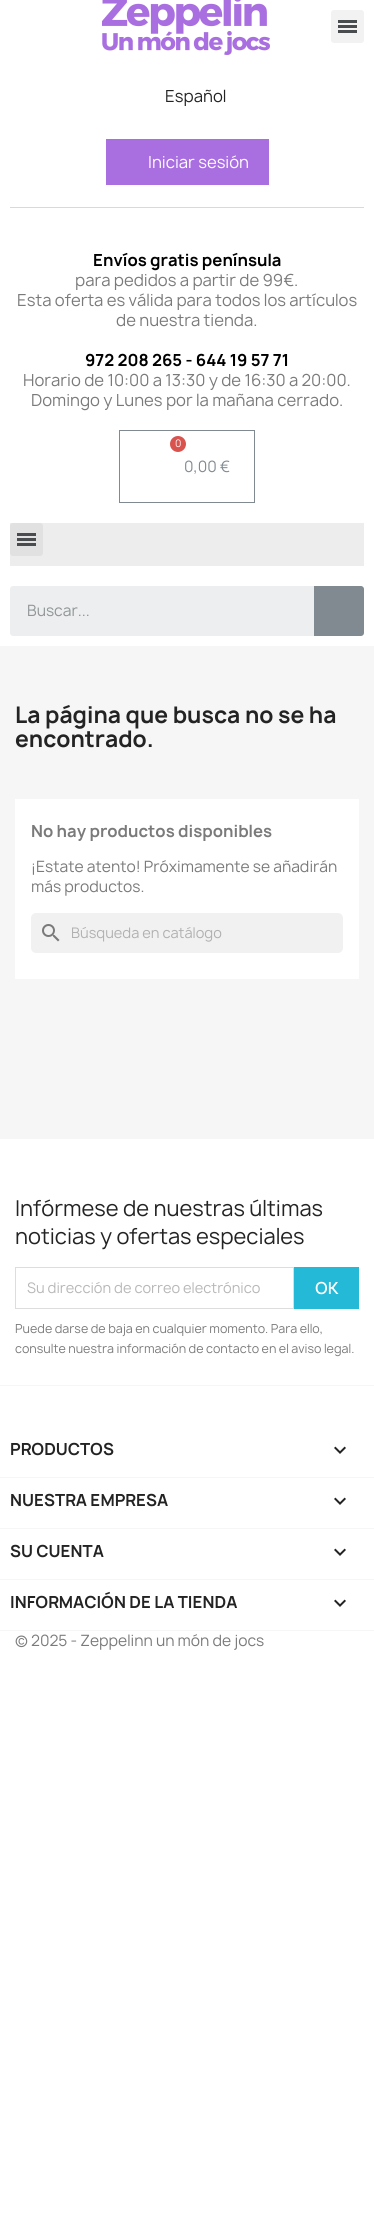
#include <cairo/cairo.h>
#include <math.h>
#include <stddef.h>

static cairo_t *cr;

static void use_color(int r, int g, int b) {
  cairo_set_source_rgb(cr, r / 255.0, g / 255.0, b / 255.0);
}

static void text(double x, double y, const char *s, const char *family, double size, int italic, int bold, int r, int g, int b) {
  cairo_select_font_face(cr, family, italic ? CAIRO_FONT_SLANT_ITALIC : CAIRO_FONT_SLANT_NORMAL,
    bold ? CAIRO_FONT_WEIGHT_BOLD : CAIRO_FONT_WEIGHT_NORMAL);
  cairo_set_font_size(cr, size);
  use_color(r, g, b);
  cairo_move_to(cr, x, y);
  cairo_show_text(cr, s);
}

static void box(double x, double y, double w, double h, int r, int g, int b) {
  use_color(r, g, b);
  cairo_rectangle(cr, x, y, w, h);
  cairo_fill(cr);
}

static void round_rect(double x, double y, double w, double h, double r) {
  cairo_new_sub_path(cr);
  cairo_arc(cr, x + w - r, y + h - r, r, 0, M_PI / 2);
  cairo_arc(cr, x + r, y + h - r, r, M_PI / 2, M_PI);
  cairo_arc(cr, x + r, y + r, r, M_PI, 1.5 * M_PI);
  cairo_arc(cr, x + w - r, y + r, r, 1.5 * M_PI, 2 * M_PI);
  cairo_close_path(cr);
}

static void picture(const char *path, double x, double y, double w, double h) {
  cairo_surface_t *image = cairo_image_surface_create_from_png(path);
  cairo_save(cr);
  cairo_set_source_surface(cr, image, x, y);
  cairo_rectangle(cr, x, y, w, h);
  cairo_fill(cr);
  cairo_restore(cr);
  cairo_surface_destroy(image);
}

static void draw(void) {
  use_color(255, 255, 255);
  cairo_paint(cr);
  use_color(242, 242, 242);
  round_rect(331, 10, 33, 33, 3);
  cairo_fill(cr);
  box(338, 25, 19, 3, 73, 76, 79);
  box(338, 20, 19, 3, 73, 76, 79);
  box(338, 30, 19, 3, 73, 76, 79);
  box(106, 139, 163, 46, 169, 111, 224);
  box(10, 207, 354, 1, 217, 217, 217);
  picture("img_01.png", 102, 0, 168, 55);
  cairo_rectangle(cr, 119.5, 430.5, 135, 72);
  use_color(129, 138, 145);
  cairo_set_line_width(cr, 1);
  cairo_stroke(cr);
  use_color(217, 83, 79);
  cairo_arc(cr, 178, 444, 8, 0, 2 * M_PI);
  cairo_fill(cr);
  box(10, 523, 354, 43, 237, 237, 237);
  use_color(225, 225, 225);
  round_rect(10, 523, 33, 33, 3);
  cairo_fill(cr);
  box(17, 538, 19, 3, 73, 76, 79);
  box(17, 533, 19, 3, 73, 76, 79);
  box(17, 543, 19, 3, 73, 76, 79);
  use_color(236, 238, 239);
  round_rect(10, 586, 354, 50, 3);
  cairo_fill(cr);
  use_color(129, 138, 145);
  cairo_new_path(cr);
  cairo_move_to(cr, 314, 586);
  cairo_line_to(cr, 361, 586);
  cairo_curve_to(cr, 362.5, 586, 364, 587.5, 364, 589);
  cairo_line_to(cr, 364, 633);
  cairo_curve_to(cr, 364, 634.5, 362.5, 636, 361, 636);
  cairo_line_to(cr, 314, 636);
  cairo_close_path(cr);
  cairo_fill(cr);
  box(0, 646, 374, 493, 246, 246, 246);
  box(15, 799, 344, 180, 255, 255, 255);
  use_color(241, 241, 241);
  round_rect(31, 913, 312, 40, 5);
  cairo_fill(cr);
  picture("img_02.png", 42, 924, 18, 18);
  box(0, 1385, 374, 1, 246, 246, 246);
  cairo_rectangle(cr, 15.5, 1267.5, 278, 41);
  use_color(221, 221, 221);
  cairo_stroke(cr);
  box(294, 1267, 65, 42, 36, 185, 215);
  box(0, 1477, 374, 1, 246, 246, 246);
  picture("img_03.png", 334, 1446, 12, 8);
  box(0, 1528, 374, 1, 246, 246, 246);
  picture("img_03.png", 334, 1497, 12, 8);
  box(0, 1579, 374, 1, 246, 246, 246);
  picture("img_03.png", 334, 1548, 12, 8);
  box(0, 1630, 374, 1, 246, 246, 246);
  picture("img_03.png", 334, 1599, 12, 8);
  text(165, 102, "Español", "Manrope", 16, 0, 0, 35, 35, 35);
  text(148, 168, "Iniciar sesión", "Manrope", 16, 0, 0, 255, 255, 255);
  text(93, 266, "Envíos gratis península", "Manrope", 16, 0, 1, 0, 0, 0);
  text(75, 286, "para pedidos a partir de 99€.", "Manrope", 16, 0, 0, 122, 122, 122);
  text(17, 306, "Esta oferta es válida para todos los artículos", "Manrope", 16, 0, 0, 122, 122, 122);
  text(116, 326, "de nuestra tienda.", "Manrope", 16, 0, 0, 122, 122, 122);
  text(85, 366, "972 208 265 - 644 19 57 71", "Manrope", 16, 0, 1, 0, 0, 0);
  text(23, 386, "Horario de 10:00 a 13:30 y de 16:30 a 20:00.", "Manrope", 16, 0, 0, 122, 122, 122);
  text(31, 406, "Domingo y Lunes por la mañana cerrado.", "Manrope", 16, 0, 0, 122, 122, 122);
  text(175, 447, "0", "Manrope", 10, 0, 0, 255, 255, 255);
  text(184, 472, "0,00 €", "Manrope", 15, 0, 0, 129, 138, 145);
  text(27, 616, "Buscar...", "Manrope", 15, 0, 0, 145, 149, 151);
  text(15, 723, "La página que busca no se ha", "Manrope", 22, 0, 1, 35, 35, 35);
  text(15, 747, "encontrado.", "Manrope", 22, 0, 1, 35, 35, 35);
  text(31, 837, "No hay productos disponibles", "Manrope", 16, 0, 1, 122, 122, 122);
  text(31, 872, "¡Estate atento! Próximamente se añadirán", "Manrope", 15, 0, 0, 122, 122, 122);
  text(31, 892, "más productos.", "Manrope", 15, 0, 0, 122, 122, 122);
  text(71, 938, "Búsqueda en catálogo", "Manrope", 14, 0, 0, 177, 177, 177);
  text(15, 1216, "Infórmese de nuestras últimas", "Manrope", 21, 0, 0, 35, 35, 35);
  text(15, 1244, "noticias y ofertas especiales", "Manrope", 21, 0, 0, 35, 35, 35);
  text(27, 1293, "Su dirección de correo electrónico", "Manrope", 14, 0, 0, 183, 183, 183);
  text(315, 1294, "OK", "Manrope SemiBold", 16, 0, 0, 255, 255, 255);
  text(15, 1333, "Puede darse de baja en cualquier momento. Para ello,", "Manrope", 12, 0, 0, 122, 122, 122);
  text(15, 1353, "consulte nuestra información de contacto en el aviso legal.", "Manrope", 12, 0, 0, 122, 122, 122);
  text(10, 1455, "PRODUCTOS", "Manrope", 16, 0, 1, 35, 35, 35);
  text(10, 1506, "NUESTRA EMPRESA", "Manrope", 16, 0, 1, 35, 35, 35);
  text(10, 1557, "SU CUENTA", "Manrope", 16, 0, 1, 35, 35, 35);
  text(10, 1608, "INFORMACIÓN DE LA TIENDA", "Manrope", 16, 0, 1, 35, 35, 35);
  text(15, 1646, "© 2025 - Zeppelinn un món de jocs", "Manrope", 15, 0, 0, 122, 122, 122);
}

int main(void) {
  cairo_surface_t *surface = cairo_image_surface_create(CAIRO_FORMAT_RGB24, 374, 2214);
  cr = cairo_create(surface);
  cairo_font_options_t *options = cairo_font_options_create();
  cairo_font_options_set_hint_metrics(options, CAIRO_HINT_METRICS_OFF);
  cairo_font_options_set_hint_style(options, CAIRO_HINT_STYLE_NONE);
  cairo_set_font_options(cr, options);
  cairo_set_miter_limit(cr, 4);
  draw();
  cairo_surface_write_to_png(surface, "out.png");
  cairo_font_options_destroy(options);
  cairo_destroy(cr);
  cairo_surface_destroy(surface);
  return 0;
}
